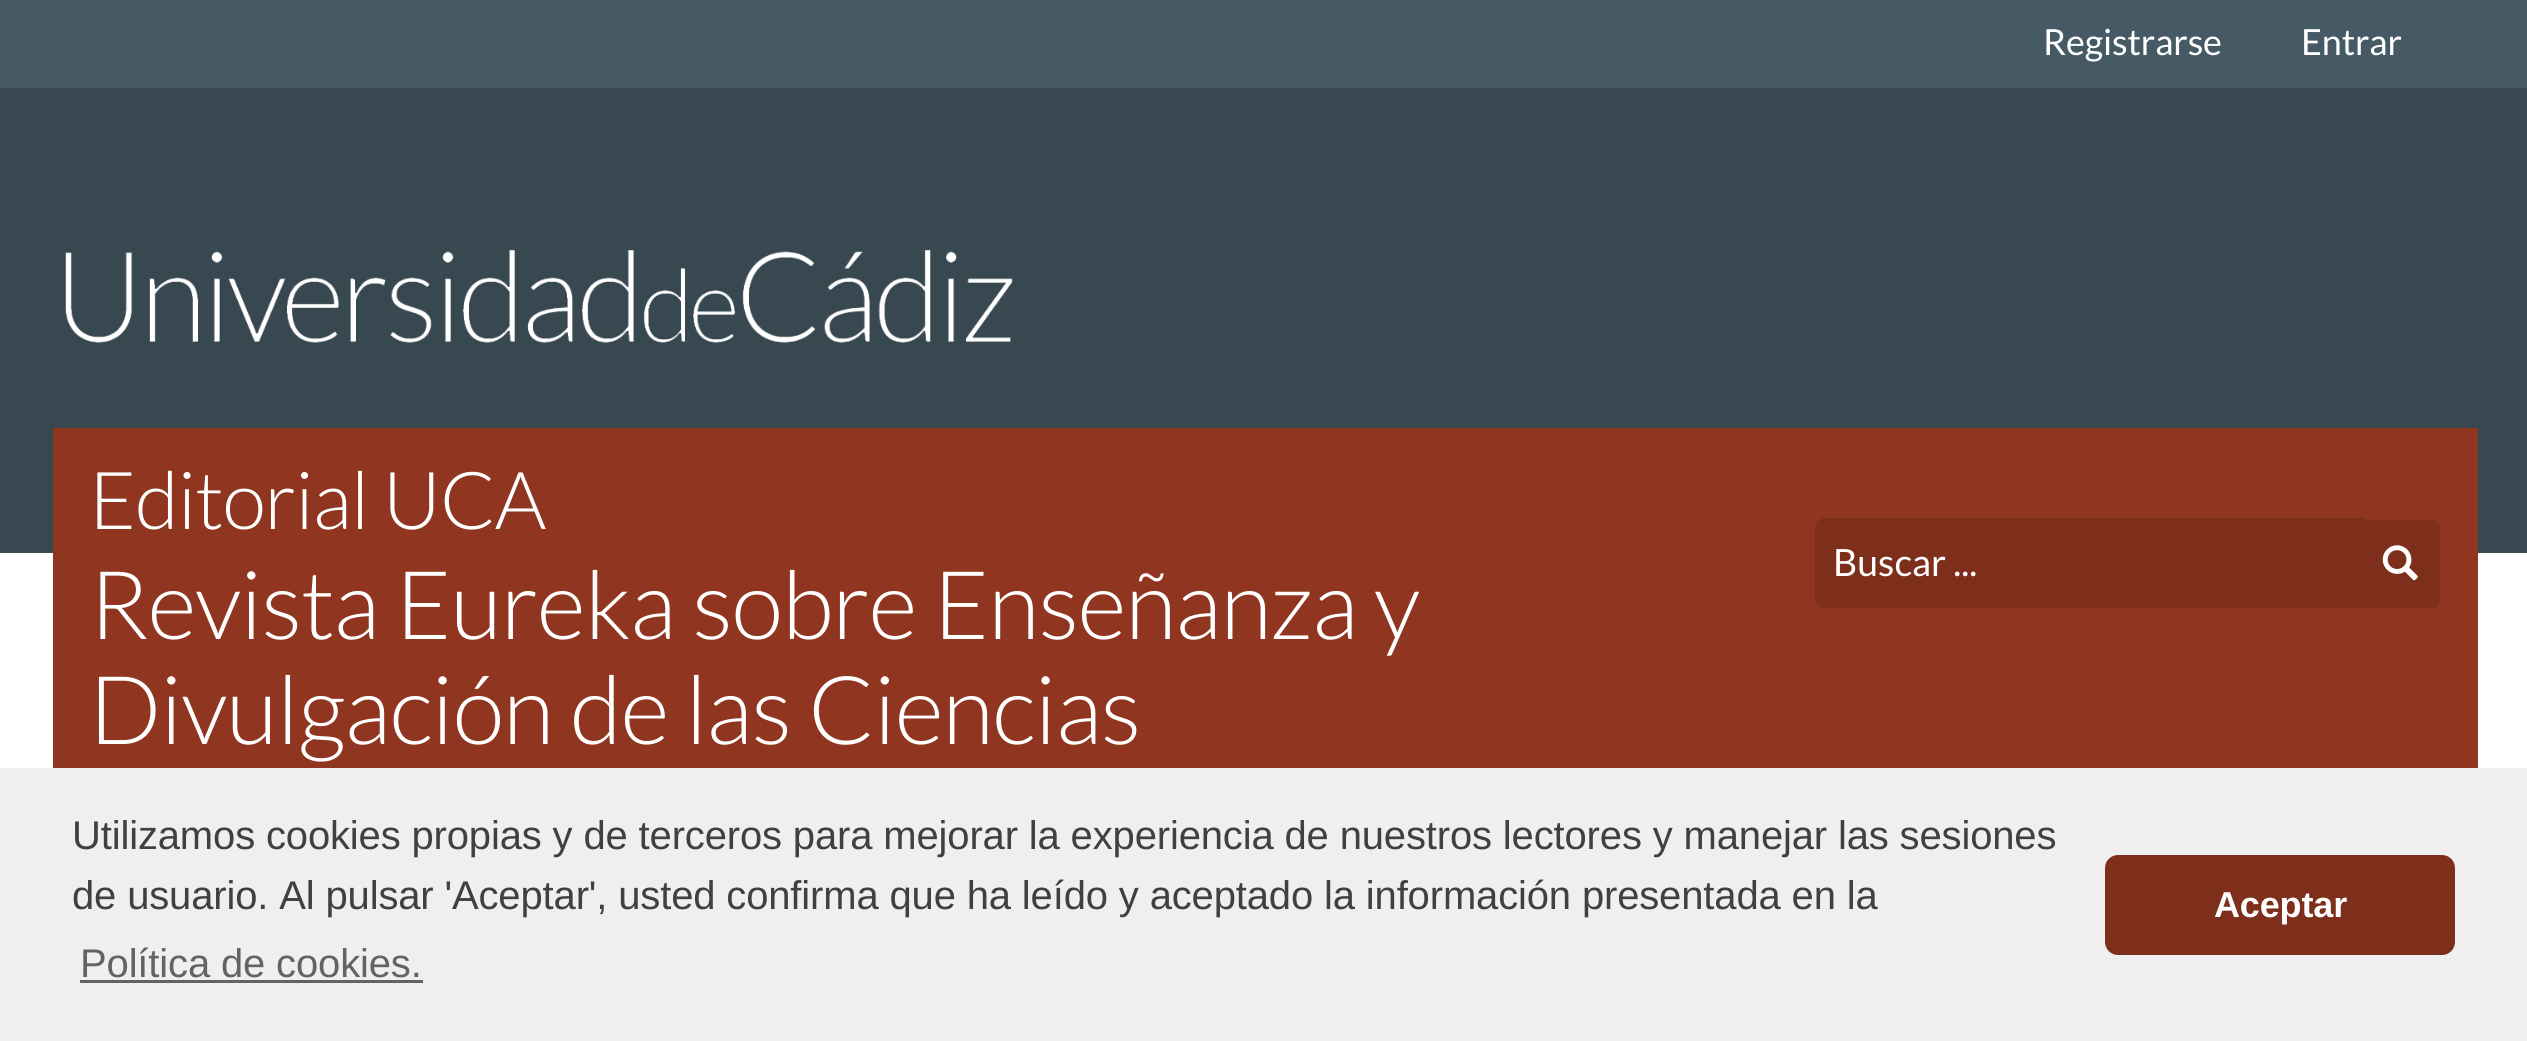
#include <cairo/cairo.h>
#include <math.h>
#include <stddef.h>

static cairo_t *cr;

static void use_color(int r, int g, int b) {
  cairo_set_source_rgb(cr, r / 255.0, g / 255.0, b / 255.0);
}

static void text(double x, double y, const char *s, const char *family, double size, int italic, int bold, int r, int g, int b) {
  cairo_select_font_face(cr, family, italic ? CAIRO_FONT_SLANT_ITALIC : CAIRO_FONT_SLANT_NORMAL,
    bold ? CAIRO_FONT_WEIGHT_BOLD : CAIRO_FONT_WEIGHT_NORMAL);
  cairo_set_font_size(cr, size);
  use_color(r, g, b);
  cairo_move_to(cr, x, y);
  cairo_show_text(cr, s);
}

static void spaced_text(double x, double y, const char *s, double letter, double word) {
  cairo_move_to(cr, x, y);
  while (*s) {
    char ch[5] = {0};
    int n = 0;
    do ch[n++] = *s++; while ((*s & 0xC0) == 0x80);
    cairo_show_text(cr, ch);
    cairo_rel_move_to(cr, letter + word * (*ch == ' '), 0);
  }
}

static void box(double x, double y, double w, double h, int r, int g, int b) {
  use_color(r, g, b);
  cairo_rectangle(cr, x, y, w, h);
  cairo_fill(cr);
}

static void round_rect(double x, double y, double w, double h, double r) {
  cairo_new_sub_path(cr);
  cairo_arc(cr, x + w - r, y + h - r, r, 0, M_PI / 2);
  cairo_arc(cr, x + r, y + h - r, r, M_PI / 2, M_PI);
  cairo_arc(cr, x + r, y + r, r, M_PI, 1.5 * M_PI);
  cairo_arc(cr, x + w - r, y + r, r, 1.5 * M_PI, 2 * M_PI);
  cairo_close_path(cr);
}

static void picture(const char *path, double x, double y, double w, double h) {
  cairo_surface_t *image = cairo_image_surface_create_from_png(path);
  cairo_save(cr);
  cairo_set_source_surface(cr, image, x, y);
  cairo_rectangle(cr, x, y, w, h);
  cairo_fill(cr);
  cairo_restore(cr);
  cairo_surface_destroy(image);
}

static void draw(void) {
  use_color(255, 255, 255);
  cairo_paint(cr);
  box(0, 0, 2527, 88, 69, 90, 100);
  box(0, 88, 2527, 465, 56, 72, 80);
  picture("img_01.png", 65, 250, 948, 93);
  box(53, 428, 2425, 340, 144, 53, 31);
  use_color(125, 47, 27);
  cairo_new_path(cr);
  cairo_move_to(cr, 1825, 518);
  cairo_line_to(cr, 2365, 518);
  cairo_line_to(cr, 2365, 608);
  cairo_line_to(cr, 1825, 608);
  cairo_curve_to(cr, 1819.5, 608, 1815, 603.5, 1815, 598);
  cairo_line_to(cr, 1815, 528);
  cairo_curve_to(cr, 1815, 522.5, 1819.5, 518, 1825, 518);
  cairo_close_path(cr);
  cairo_fill(cr);
  cairo_new_path(cr);
  cairo_move_to(cr, 2363, 520);
  cairo_line_to(cr, 2432, 520);
  cairo_curve_to(cr, 2436.5, 520, 2440, 523.5, 2440, 528);
  cairo_line_to(cr, 2440, 600);
  cairo_curve_to(cr, 2440, 604.5, 2436.5, 608, 2432, 608);
  cairo_line_to(cr, 2363, 608);
  cairo_close_path(cr);
  cairo_fill(cr);
  picture("img_02.png", 2382, 545, 36, 36);
  box(0, 768, 2527, 273, 239, 239, 239);
  box(80, 980, 343, 3, 99, 99, 99);
  use_color(125, 47, 27);
  round_rect(2105, 855, 350, 100, 13);
  cairo_fill(cr);
  cairo_select_font_face(cr, "Lato", CAIRO_FONT_SLANT_NORMAL, CAIRO_FONT_WEIGHT_NORMAL);
  cairo_set_font_size(cr, 36);
  use_color(255, 255, 255);
  spaced_text(2043, 55, "Registrarse", -0.15, 0);
  spaced_text(2301, 55, "Entrar", -0.15, 0);
  cairo_select_font_face(cr, "Lato Light", CAIRO_FONT_SLANT_NORMAL, CAIRO_FONT_WEIGHT_NORMAL);
  cairo_set_font_size(cr, 80);
  spaced_text(89, 529, "Editorial UCA", -1.25, 0);
  cairo_set_font_size(cr, 95);
  spaced_text(89, 639, "Revista Eureka sobre Enseñanza y", -1.25, 0);
  spaced_text(89, 744, "Divulgación de las Ciencias", -1.25, 0);
  text(1833, 576, "Buscar ...", "Lato", 37.5, 0, 0, 255, 255, 255);
  cairo_select_font_face(cr, "Liberation Sans", CAIRO_FONT_SLANT_NORMAL, CAIRO_FONT_WEIGHT_NORMAL);
  cairo_set_font_size(cr, 40);
  use_color(64, 64, 64);
  spaced_text(72, 849, "Utilizamos cookies propias y de terceros para mejorar la experiencia de nuestros lectores y manejar las sesiones", -0.15, 0);
  spaced_text(72, 909, "de usuario. Al pulsar 'Aceptar', usted confirma que ha leído y aceptado la información presentada en la", -0.15, 0);
  use_color(99, 99, 99);
  spaced_text(80, 977, "Política de cookies.", -0.15, 0);
  cairo_select_font_face(cr, "Liberation Sans", CAIRO_FONT_SLANT_NORMAL, CAIRO_FONT_WEIGHT_BOLD);
  cairo_set_font_size(cr, 36);
  use_color(255, 255, 255);
  spaced_text(2214, 917, "Aceptar", -0.15, 0);
}

int main(void) {
  cairo_surface_t *surface = cairo_image_surface_create(CAIRO_FORMAT_RGB24, 2527, 1041);
  cr = cairo_create(surface);
  cairo_font_options_t *options = cairo_font_options_create();
  cairo_font_options_set_hint_metrics(options, CAIRO_HINT_METRICS_OFF);
  cairo_font_options_set_hint_style(options, CAIRO_HINT_STYLE_NONE);
  cairo_set_font_options(cr, options);
  cairo_set_miter_limit(cr, 4);
  draw();
  cairo_surface_write_to_png(surface, "out.png");
  cairo_font_options_destroy(options);
  cairo_destroy(cr);
  cairo_surface_destroy(surface);
  return 0;
}
